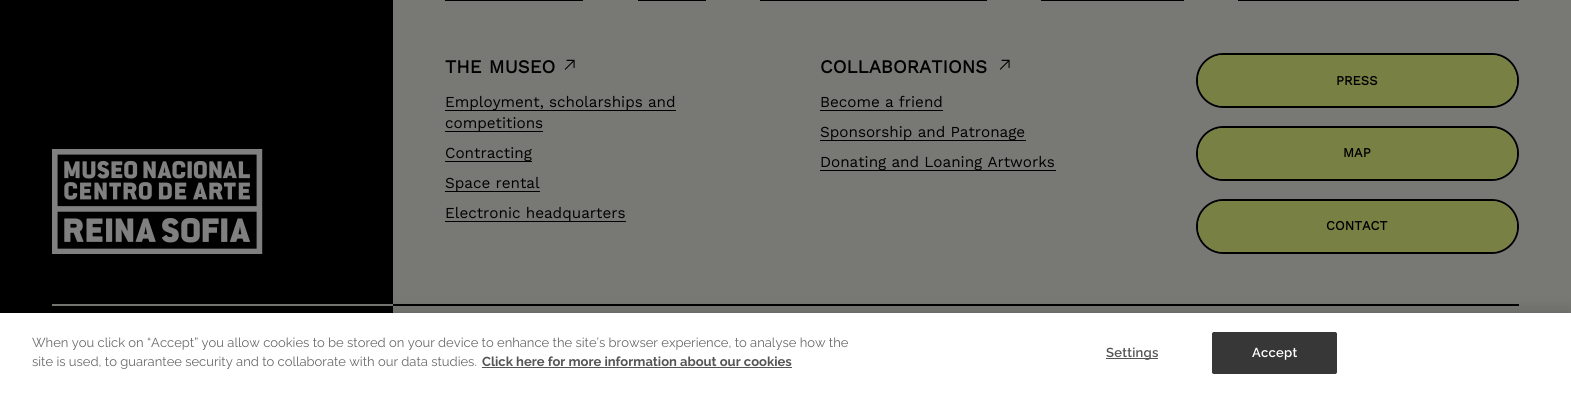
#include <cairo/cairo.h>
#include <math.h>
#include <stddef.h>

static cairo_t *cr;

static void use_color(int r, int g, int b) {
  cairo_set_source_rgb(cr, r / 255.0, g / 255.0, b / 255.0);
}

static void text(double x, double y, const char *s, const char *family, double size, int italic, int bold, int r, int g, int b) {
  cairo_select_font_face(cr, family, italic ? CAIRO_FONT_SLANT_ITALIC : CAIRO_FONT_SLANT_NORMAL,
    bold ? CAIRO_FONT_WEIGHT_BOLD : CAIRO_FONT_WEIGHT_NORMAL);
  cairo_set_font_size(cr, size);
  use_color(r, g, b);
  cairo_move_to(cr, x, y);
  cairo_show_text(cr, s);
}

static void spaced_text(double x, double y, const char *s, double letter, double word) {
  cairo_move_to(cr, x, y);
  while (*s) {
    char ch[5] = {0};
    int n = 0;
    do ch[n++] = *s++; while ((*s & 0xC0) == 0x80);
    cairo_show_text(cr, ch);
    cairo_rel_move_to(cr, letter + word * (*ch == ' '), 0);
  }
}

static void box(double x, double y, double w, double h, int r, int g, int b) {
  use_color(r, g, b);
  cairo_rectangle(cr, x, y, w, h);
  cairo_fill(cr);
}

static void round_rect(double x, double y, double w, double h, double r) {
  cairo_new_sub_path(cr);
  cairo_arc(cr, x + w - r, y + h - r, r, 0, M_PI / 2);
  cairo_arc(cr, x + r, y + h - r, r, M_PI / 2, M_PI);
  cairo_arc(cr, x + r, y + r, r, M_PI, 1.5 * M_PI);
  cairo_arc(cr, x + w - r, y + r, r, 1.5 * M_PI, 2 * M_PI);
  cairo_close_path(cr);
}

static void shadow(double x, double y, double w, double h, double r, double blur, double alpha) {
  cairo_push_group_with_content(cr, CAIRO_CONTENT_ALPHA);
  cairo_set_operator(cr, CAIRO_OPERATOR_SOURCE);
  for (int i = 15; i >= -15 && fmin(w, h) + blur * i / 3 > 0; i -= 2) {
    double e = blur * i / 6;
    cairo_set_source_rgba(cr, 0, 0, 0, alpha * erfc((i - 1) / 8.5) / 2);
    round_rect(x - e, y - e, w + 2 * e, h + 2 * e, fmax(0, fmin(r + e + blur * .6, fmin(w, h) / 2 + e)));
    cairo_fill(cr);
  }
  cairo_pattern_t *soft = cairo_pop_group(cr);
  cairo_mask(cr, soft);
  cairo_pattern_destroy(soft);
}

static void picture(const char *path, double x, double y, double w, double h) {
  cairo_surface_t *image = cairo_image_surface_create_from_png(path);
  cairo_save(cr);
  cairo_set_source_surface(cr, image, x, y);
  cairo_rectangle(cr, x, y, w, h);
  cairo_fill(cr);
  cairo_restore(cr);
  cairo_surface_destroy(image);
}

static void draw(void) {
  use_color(120, 121, 117);
  cairo_paint(cr);
  box(0, 0, 393, 313, 0, 0, 0);
  picture("img_01.png", 52, 149, 211, 105);
  box(52, 304, 341, 2, 120, 121, 117);
  box(445, 0, 138, 1, 0, 0, 0);
  box(638, 0, 68, 1, 0, 0, 0);
  box(760, 0, 227, 1, 0, 0, 0);
  box(1041, 0, 143, 1, 0, 0, 0);
  box(1238, 0, 281, 1, 0, 0, 0);
  picture("img_02.png", 564, 59, 11, 11);
  box(445, 110, 231, 1, 0, 0, 0);
  box(445, 131, 98, 1, 0, 0, 0);
  box(445, 161, 87, 1, 0, 0, 0);
  box(445, 191, 95, 1, 0, 0, 0);
  box(445, 221, 181, 1, 0, 0, 0);
  picture("img_02.png", 999, 59, 11, 11);
  box(820, 110, 123, 1, 0, 0, 0);
  box(820, 140, 206, 1, 0, 0, 0);
  box(820, 170, 236, 1, 0, 0, 0);
  round_rect(1197, 54, 321, 53, 26.5);
  cairo_stroke(cr);
  use_color(121, 128, 67);
  round_rect(1198, 55, 319, 51, 25.5);
  cairo_fill(cr);
  round_rect(1197, 127, 321, 53, 26.5);
  use_color(0, 0, 0);
  cairo_stroke(cr);
  use_color(121, 128, 67);
  round_rect(1198, 128, 319, 51, 25.5);
  cairo_fill(cr);
  round_rect(1197, 200, 321, 53, 26.5);
  use_color(0, 0, 0);
  cairo_stroke(cr);
  use_color(121, 128, 67);
  round_rect(1198, 201, 319, 51, 25.5);
  cairo_fill(cr);
  box(393, 304, 1126, 2, 0, 0, 0);
  use_color(0, 0, 0);
  shadow(0, 313, 1571, 82, 0, 9, 0.2);
  box(0, 313, 1571, 82, 255, 255, 255);
  box(482, 367, 310, 1, 85, 85, 85);
  box(1106, 358, 52, 1, 85, 85, 85);
  use_color(55, 55, 55);
  round_rect(1212.5, 332.5, 124, 41, 1.5);
  cairo_fill_preserve(cr);
  cairo_set_line_width(cr, 1);
  cairo_stroke(cr);
  cairo_select_font_face(cr, "Work Sans", CAIRO_FONT_SLANT_NORMAL, CAIRO_FONT_WEIGHT_BOLD);
  cairo_set_font_size(cr, 18.5);
  use_color(0, 0, 0);
  spaced_text(445, 73, "THE MUSEO", 0, 1);
  text(445, 107, "Employment, scholarships and", "Work Sans", 15.25, 0, 0, 0, 0, 0);
  text(445, 128, "competitions", "Work Sans", 15.25, 0, 0, 0, 0, 0);
  text(445, 158, "Contracting", "Work Sans", 15.25, 0, 0, 0, 0, 0);
  text(445, 188, "Space rental", "Work Sans", 15.25, 0, 0, 0, 0, 0);
  text(445, 218, "Electronic headquarters", "Work Sans", 15.25, 0, 0, 0, 0, 0);
  text(820, 73, "COLLABORATIONS", "Work Sans", 18.5, 0, 1, 0, 0, 0);
  text(820, 107, "Become a friend", "Work Sans", 15.25, 0, 0, 0, 0, 0);
  text(820, 137, "Sponsorship and Patronage", "Work Sans", 15.25, 0, 0, 0, 0, 0);
  text(820, 167, "Donating and Loaning Artworks", "Work Sans", 15.25, 0, 0, 0, 0, 0);
  text(1336, 85, "PRESS", "Work Sans", 13, 0, 1, 0, 0, 0);
  text(1343, 157, "MAP", "Work Sans", 13, 0, 1, 0, 0, 0);
  text(1326, 230, "CONTACT", "Work Sans", 13, 0, 1, 0, 0, 0);
  text(32, 347, "When you click on “Accept” you allow cookies to be stored on your device to enhance the site’s browser experience, to analyse how the", "Raleway", 13, 0, 0, 105, 105, 105);
  text(32, 366, "site is used, to guarantee security and to collaborate with our data studies.", "Raleway", 13, 0, 0, 105, 105, 105);
  text(482, 366, "Click here for more information about our cookies", "Raleway", 13, 0, 1, 85, 85, 85);
  cairo_select_font_face(cr, "Raleway SemiBold", CAIRO_FONT_SLANT_NORMAL, CAIRO_FONT_WEIGHT_NORMAL);
  spaced_text(1106, 357, "Settings", 0.25, 0);
  use_color(255, 255, 255);
  spaced_text(1252, 357, "Accept", 0.25, 0);
}

int main(void) {
  cairo_surface_t *surface = cairo_image_surface_create(CAIRO_FORMAT_RGB24, 1571, 395);
  cr = cairo_create(surface);
  cairo_font_options_t *options = cairo_font_options_create();
  cairo_font_options_set_hint_metrics(options, CAIRO_HINT_METRICS_OFF);
  cairo_font_options_set_hint_style(options, CAIRO_HINT_STYLE_NONE);
  cairo_set_font_options(cr, options);
  cairo_set_miter_limit(cr, 4);
  draw();
  cairo_surface_write_to_png(surface, "out.png");
  cairo_font_options_destroy(options);
  cairo_destroy(cr);
  cairo_surface_destroy(surface);
  return 0;
}
